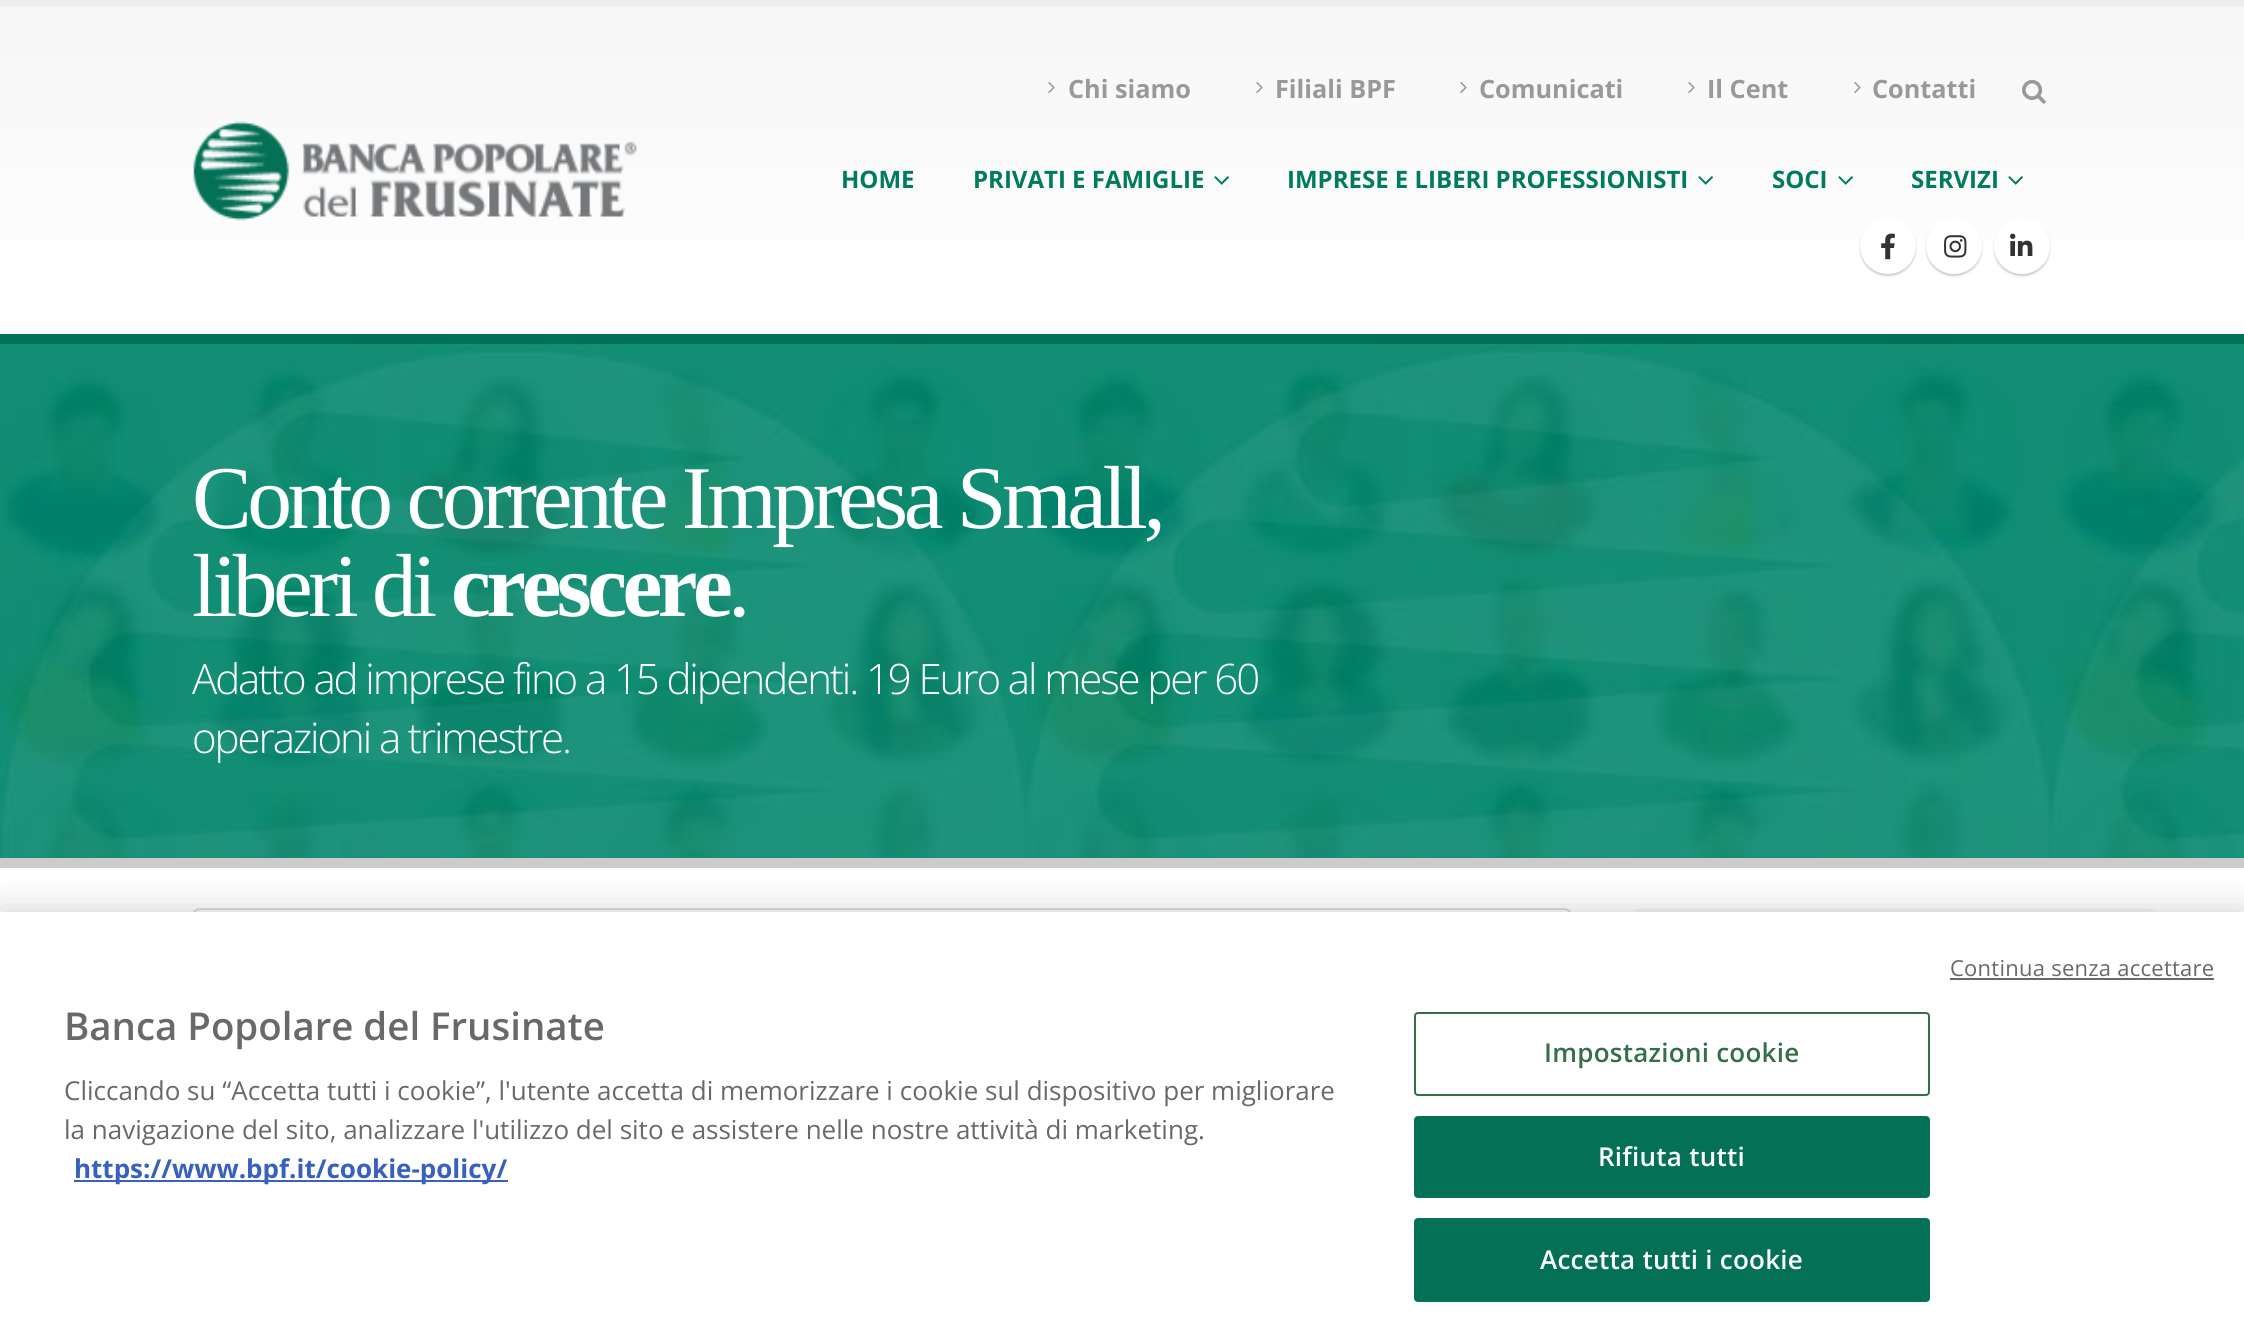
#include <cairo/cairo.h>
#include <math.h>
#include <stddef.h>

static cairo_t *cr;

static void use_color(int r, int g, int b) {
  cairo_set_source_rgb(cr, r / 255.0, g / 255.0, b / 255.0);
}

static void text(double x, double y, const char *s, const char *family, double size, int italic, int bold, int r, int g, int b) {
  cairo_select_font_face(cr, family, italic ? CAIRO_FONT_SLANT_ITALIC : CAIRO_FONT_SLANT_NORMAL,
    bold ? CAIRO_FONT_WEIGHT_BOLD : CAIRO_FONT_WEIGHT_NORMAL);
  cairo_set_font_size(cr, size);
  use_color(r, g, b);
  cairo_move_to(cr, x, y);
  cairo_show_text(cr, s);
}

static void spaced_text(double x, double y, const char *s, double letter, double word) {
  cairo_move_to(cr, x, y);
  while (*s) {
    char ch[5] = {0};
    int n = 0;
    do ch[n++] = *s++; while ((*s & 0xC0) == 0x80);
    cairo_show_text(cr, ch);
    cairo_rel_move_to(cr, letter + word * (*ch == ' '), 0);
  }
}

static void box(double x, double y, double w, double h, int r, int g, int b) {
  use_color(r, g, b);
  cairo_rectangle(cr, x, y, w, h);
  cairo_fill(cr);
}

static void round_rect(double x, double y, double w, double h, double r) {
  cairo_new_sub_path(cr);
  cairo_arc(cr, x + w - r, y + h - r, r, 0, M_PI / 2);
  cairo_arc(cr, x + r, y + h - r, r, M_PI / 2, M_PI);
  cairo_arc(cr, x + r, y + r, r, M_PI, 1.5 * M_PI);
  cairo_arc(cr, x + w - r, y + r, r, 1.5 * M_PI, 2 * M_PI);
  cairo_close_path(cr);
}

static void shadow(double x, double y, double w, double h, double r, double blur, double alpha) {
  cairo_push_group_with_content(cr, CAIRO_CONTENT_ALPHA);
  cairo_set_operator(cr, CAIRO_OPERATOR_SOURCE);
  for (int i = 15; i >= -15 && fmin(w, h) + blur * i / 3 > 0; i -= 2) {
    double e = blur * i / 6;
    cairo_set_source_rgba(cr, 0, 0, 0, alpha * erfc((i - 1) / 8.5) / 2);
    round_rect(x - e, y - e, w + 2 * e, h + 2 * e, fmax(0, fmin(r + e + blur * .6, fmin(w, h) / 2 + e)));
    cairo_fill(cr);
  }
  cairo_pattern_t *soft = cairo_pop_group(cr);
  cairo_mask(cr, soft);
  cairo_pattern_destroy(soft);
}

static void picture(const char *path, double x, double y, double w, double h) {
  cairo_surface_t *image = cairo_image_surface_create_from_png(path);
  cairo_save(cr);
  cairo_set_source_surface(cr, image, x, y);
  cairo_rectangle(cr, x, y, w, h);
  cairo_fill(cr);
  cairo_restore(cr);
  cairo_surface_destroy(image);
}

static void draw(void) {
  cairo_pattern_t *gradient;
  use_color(255, 255, 255);
  cairo_paint(cr);
  gradient = cairo_pattern_create_linear(1122, 0, 1122, 334);
  cairo_pattern_add_color_stop_rgba(gradient, 0, 0.965, 0.965, 0.965, 1);
  cairo_pattern_add_color_stop_rgba(gradient, 1, 1, 1, 1, 1);
  cairo_set_source(cr, gradient);
  cairo_pattern_destroy(gradient);
  cairo_rectangle(cr, 0, 6, 2244, 235);
  cairo_fill(cr);
  box(0, 0, 2244, 6, 237, 237, 237);
  picture("img_01.png", 193, 121, 444, 100);
  picture("img_02.png", 1048, 82, 7, 11);
  picture("img_02.png", 1256, 82, 7, 11);
  picture("img_02.png", 1460, 82, 7, 11);
  picture("img_02.png", 1688, 82, 7, 11);
  picture("img_02.png", 1854, 82, 7, 11);
  picture("img_03.png", 2022, 79, 24, 25);
  picture("img_04.png", 1214, 176, 15, 9);
  picture("img_04.png", 1698, 176, 15, 9);
  picture("img_04.png", 1838, 176, 15, 9);
  picture("img_04.png", 2008, 176, 15, 9);
  use_color(0, 0, 0);
  shadow(1860, 220, 56, 56, 28, 1, 0.2);
  use_color(255, 255, 255);
  cairo_arc(cr, 1888, 246, 28, 0, 2 * M_PI);
  cairo_fill(cr);
  picture("img_05.png", 1881, 233, 14, 27);
  use_color(0, 0, 0);
  shadow(1926, 220, 56, 56, 28, 1, 0.2);
  use_color(255, 255, 255);
  cairo_arc(cr, 1954, 246, 28, 0, 2 * M_PI);
  cairo_fill(cr);
  picture("img_06.png", 1944, 235, 23, 23);
  use_color(0, 0, 0);
  shadow(1994, 220, 56, 56, 28, 1, 0.2);
  use_color(255, 255, 255);
  cairo_arc(cr, 2022, 246, 28, 0, 2 * M_PI);
  cairo_fill(cr);
  picture("img_07.png", 2010, 233, 23, 23);
  picture("img_08.png", 0, 344, 2244, 514);
  box(0, 334, 2244, 10, 0, 113, 86);
  box(0, 858, 2244, 10, 204, 204, 204);
  round_rect(193, 909, 1378, 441, 7);
  use_color(221, 221, 221);
  cairo_stroke(cr);
  use_color(247, 247, 247);
  round_rect(1632, 908, 526, 96, 10);
  cairo_fill(cr);
  use_color(0, 0, 0);
  shadow(0, 912, 2244, 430, 0, 18, 0.2);
  box(0, 912, 2244, 429, 255, 255, 255);
  box(1950, 978, 264, 2, 105, 105, 105);
  box(74, 1180, 434, 2, 56, 96, 190);
  round_rect(1415, 1013, 514, 82, 3);
  use_color(52, 110, 74);
  cairo_stroke(cr);
  use_color(4, 112, 86);
  round_rect(1415, 1117, 514, 80, 3);
  cairo_fill_preserve(cr);
  cairo_stroke(cr);
  round_rect(1415, 1219, 514, 82, 3);
  cairo_fill_preserve(cr);
  cairo_stroke(cr);
  text(1068, 98, "Chi siamo", "Open Sans", 25.25, 0, 1, 153, 153, 153);
  text(1275, 98, "Filiali BPF", "Open Sans", 25.25, 0, 1, 153, 153, 153);
  text(1479, 98, "Comunicati", "Open Sans", 25.25, 0, 1, 153, 153, 153);
  text(1707, 98, "Il Cent", "Open Sans", 25.25, 0, 1, 153, 153, 153);
  text(1872, 98, "Contatti", "Open Sans", 25.25, 0, 1, 153, 153, 153);
  text(841, 188, "HOME", "Open Sans", 24, 0, 1, 0, 123, 94);
  text(973, 188, "PRIVATI E FAMIGLIE", "Open Sans", 24, 0, 1, 0, 123, 94);
  text(1287, 188, "IMPRESE E LIBERI PROFESSIONISTI", "Open Sans", 24, 0, 1, 0, 123, 94);
  text(1772, 188, "SOCI", "Open Sans", 24, 0, 1, 0, 123, 94);
  text(1911, 188, "SERVIZI", "Open Sans", 24, 0, 1, 0, 123, 94);
  cairo_select_font_face(cr, "Liberation Serif", CAIRO_FONT_SLANT_NORMAL, CAIRO_FONT_WEIGHT_NORMAL);
  cairo_set_font_size(cr, 89.6);
  use_color(255, 255, 255);
  spaced_text(192, 528, "Conto corrente Impresa Small,", -4.5, 0);
  spaced_text(192, 616, "liberi di", -4.5, 0);
  cairo_select_font_face(cr, "Liberation Serif", CAIRO_FONT_SLANT_NORMAL, CAIRO_FONT_WEIGHT_BOLD);
  spaced_text(451, 616, "crescere", -4.5, 0);
  cairo_select_font_face(cr, "Liberation Serif", CAIRO_FONT_SLANT_NORMAL, CAIRO_FONT_WEIGHT_NORMAL);
  spaced_text(728, 616, ".", -4.5, 0);
  cairo_select_font_face(cr, "Open Sans Light", CAIRO_FONT_SLANT_NORMAL, CAIRO_FONT_WEIGHT_NORMAL);
  cairo_set_font_size(cr, 42);
  spaced_text(192, 694, "Adatto ad imprese fino a 15 dipendenti. 19 Euro al mese per 60", -2.1, 0);
  spaced_text(192, 753, "operazioni a trimestre.", -2.1, 0);
  cairo_select_font_face(cr, "Open Sans", CAIRO_FONT_SLANT_NORMAL, CAIRO_FONT_WEIGHT_NORMAL);
  cairo_set_font_size(cr, 22);
  use_color(105, 105, 105);
  spaced_text(1950, 976, "Continua senza accettare", 0.25, 0);
  text(64, 1040, "Banca Popolare del Frusinate", "Open Sans SemiBold", 38.4, 0, 0, 105, 105, 105);
  text(64, 1100, "Cliccando su “Accetta tutti i cookie”, l'utente accetta di memorizzare i cookie sul dispositivo per migliorare", "Open Sans", 26, 0, 0, 105, 105, 105);
  text(64, 1139, "la navigazione del sito, analizzare l'utilizzo del sito e assistere nelle nostre attività di marketing.", "Open Sans", 26, 0, 0, 105, 105, 105);
  text(74, 1178, "https://www.bpf.it/cookie-policy/", "Open Sans", 26, 0, 1, 56, 96, 190);
  cairo_select_font_face(cr, "Open Sans SemiBold", CAIRO_FONT_SLANT_NORMAL, CAIRO_FONT_WEIGHT_NORMAL);
  use_color(52, 110, 74);
  spaced_text(1544, 1062, "Impostazioni cookie", 0.25, 0);
  use_color(255, 255, 255);
  spaced_text(1598, 1166, "Rifiuta tutti", 0.25, 0);
  spaced_text(1540, 1269, "Accetta tutti i cookie", 0.25, 0);
}

int main(void) {
  cairo_surface_t *surface = cairo_image_surface_create(CAIRO_FORMAT_RGB24, 2244, 1341);
  cr = cairo_create(surface);
  cairo_font_options_t *options = cairo_font_options_create();
  cairo_font_options_set_hint_metrics(options, CAIRO_HINT_METRICS_OFF);
  cairo_font_options_set_hint_style(options, CAIRO_HINT_STYLE_NONE);
  cairo_set_font_options(cr, options);
  cairo_set_miter_limit(cr, 4);
  draw();
  cairo_surface_write_to_png(surface, "out.png");
  cairo_font_options_destroy(options);
  cairo_destroy(cr);
  cairo_surface_destroy(surface);
  return 0;
}
